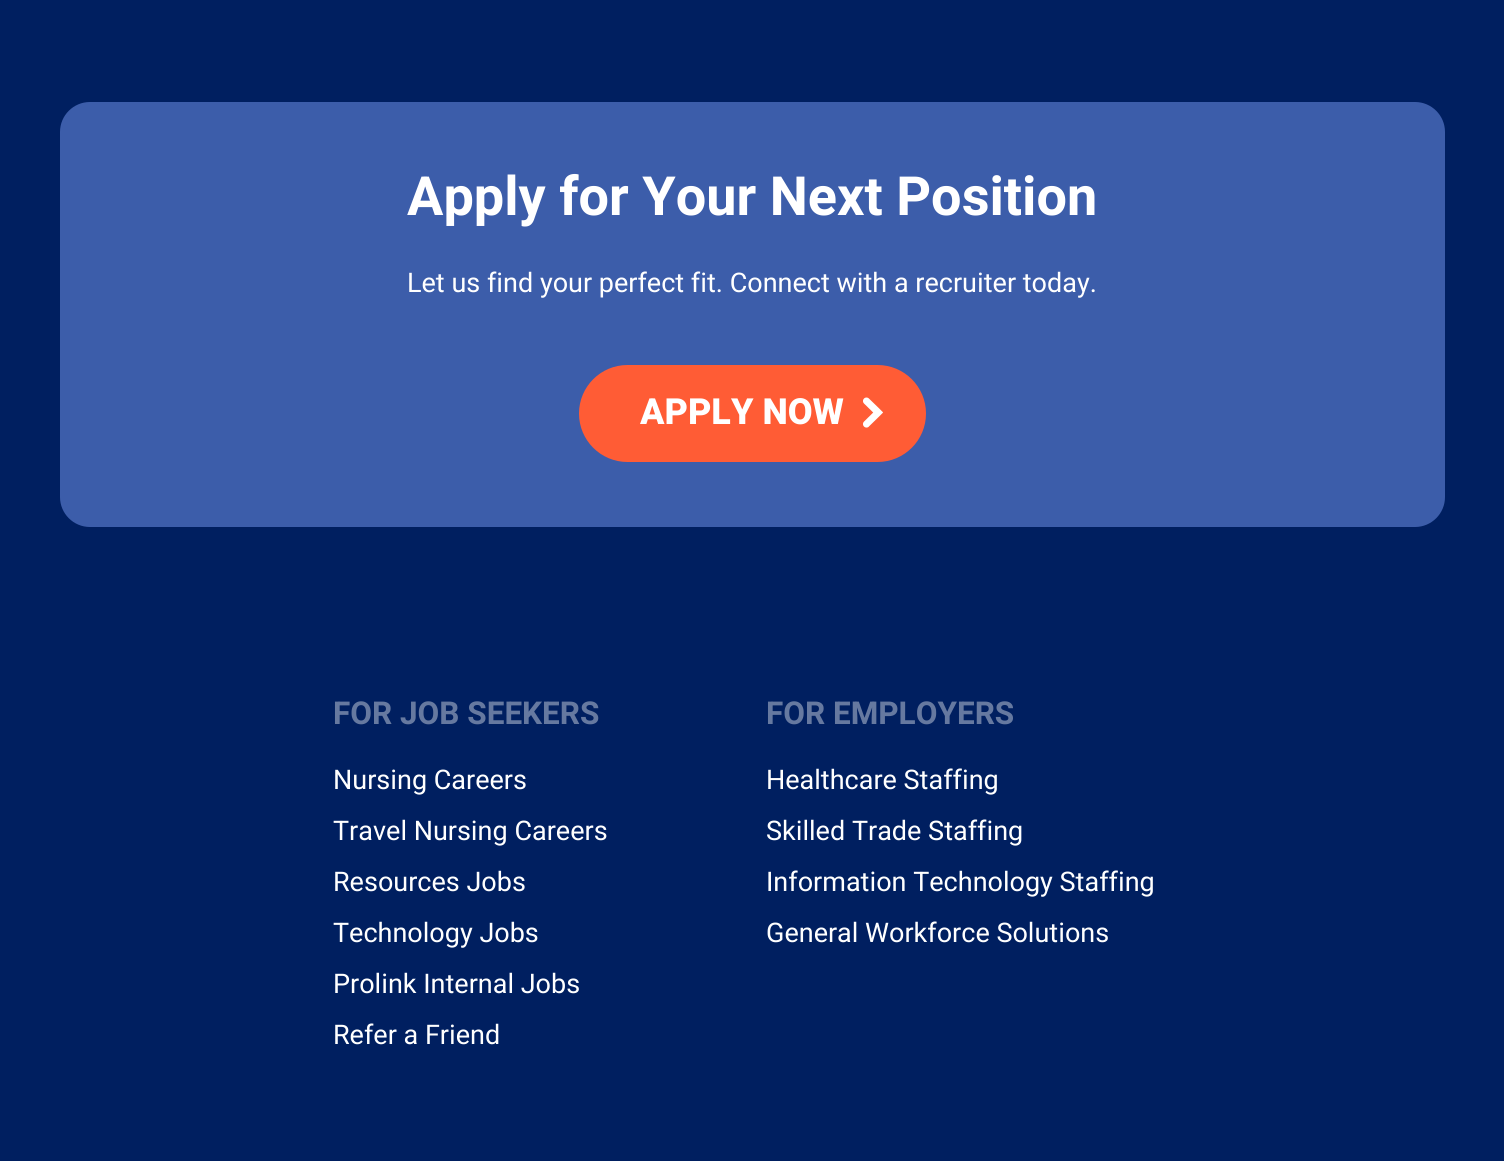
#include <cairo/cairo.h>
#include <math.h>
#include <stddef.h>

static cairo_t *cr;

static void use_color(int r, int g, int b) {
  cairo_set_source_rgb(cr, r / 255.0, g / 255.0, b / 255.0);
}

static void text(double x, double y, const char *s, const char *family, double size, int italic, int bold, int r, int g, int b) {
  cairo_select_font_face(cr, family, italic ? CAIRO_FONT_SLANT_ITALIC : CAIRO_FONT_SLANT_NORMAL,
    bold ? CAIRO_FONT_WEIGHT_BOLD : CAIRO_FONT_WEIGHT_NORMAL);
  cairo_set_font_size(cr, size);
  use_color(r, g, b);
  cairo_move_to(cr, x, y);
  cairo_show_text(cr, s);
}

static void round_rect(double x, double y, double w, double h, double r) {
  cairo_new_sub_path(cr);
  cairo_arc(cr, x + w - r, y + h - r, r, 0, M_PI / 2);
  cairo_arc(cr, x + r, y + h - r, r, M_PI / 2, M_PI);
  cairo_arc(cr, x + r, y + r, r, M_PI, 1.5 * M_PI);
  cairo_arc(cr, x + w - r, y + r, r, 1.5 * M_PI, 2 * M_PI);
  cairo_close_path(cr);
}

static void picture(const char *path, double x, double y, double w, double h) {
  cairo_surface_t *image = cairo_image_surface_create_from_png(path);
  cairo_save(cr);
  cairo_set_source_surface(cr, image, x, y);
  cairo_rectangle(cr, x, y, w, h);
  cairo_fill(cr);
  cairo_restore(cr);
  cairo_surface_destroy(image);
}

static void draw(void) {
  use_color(0, 31, 96);
  cairo_paint(cr);
  use_color(60, 93, 170);
  round_rect(60, 102, 1385, 425, 30);
  cairo_fill(cr);
  use_color(255, 92, 53);
  round_rect(580, 366, 345, 95, 47.5);
  cairo_fill_preserve(cr);
  cairo_stroke(cr);
  picture("img_01.png", 863, 397, 20, 31);
  text(407, 215, "Apply for Your Next Position", "Heebo", 54, 0, 1, 255, 255, 255);
  text(407, 292, "Let us find your perfect fit. Connect with a recruiter today.", "Heebo", 27, 0, 0, 255, 255, 255);
  text(640, 424, "APPLY NOW", "Heebo ExtraBold", 36, 0, 0, 255, 255, 255);
  text(333, 724, "FOR JOB SEEKERS", "Heebo", 31.5, 0, 1, 102, 121, 160);
  text(333, 789, "Nursing Careers", "Heebo", 27, 0, 0, 255, 255, 255);
  text(333, 840, "Travel Nursing Careers", "Heebo", 27, 0, 0, 255, 255, 255);
  text(333, 891, "Resources Jobs", "Heebo", 27, 0, 0, 255, 255, 255);
  text(333, 942, "Technology Jobs", "Heebo", 27, 0, 0, 255, 255, 255);
  text(333, 993, "Prolink Internal Jobs", "Heebo", 27, 0, 0, 255, 255, 255);
  text(333, 1044, "Refer a Friend", "Heebo", 27, 0, 0, 255, 255, 255);
  text(766, 724, "FOR EMPLOYERS", "Heebo", 31.5, 0, 1, 102, 121, 160);
  text(766, 789, "Healthcare Staffing", "Heebo", 27, 0, 0, 255, 255, 255);
  text(766, 840, "Skilled Trade Staffing", "Heebo", 27, 0, 0, 255, 255, 255);
  text(766, 891, "Information Technology Staffing", "Heebo", 27, 0, 0, 255, 255, 255);
  text(766, 942, "General Workforce Solutions", "Heebo", 27, 0, 0, 255, 255, 255);
}

int main(void) {
  cairo_surface_t *surface = cairo_image_surface_create(CAIRO_FORMAT_RGB24, 1504, 1161);
  cr = cairo_create(surface);
  cairo_font_options_t *options = cairo_font_options_create();
  cairo_font_options_set_hint_metrics(options, CAIRO_HINT_METRICS_OFF);
  cairo_font_options_set_hint_style(options, CAIRO_HINT_STYLE_NONE);
  cairo_set_font_options(cr, options);
  cairo_set_miter_limit(cr, 4);
  draw();
  cairo_surface_write_to_png(surface, "out.png");
  cairo_font_options_destroy(options);
  cairo_destroy(cr);
  cairo_surface_destroy(surface);
  return 0;
}
